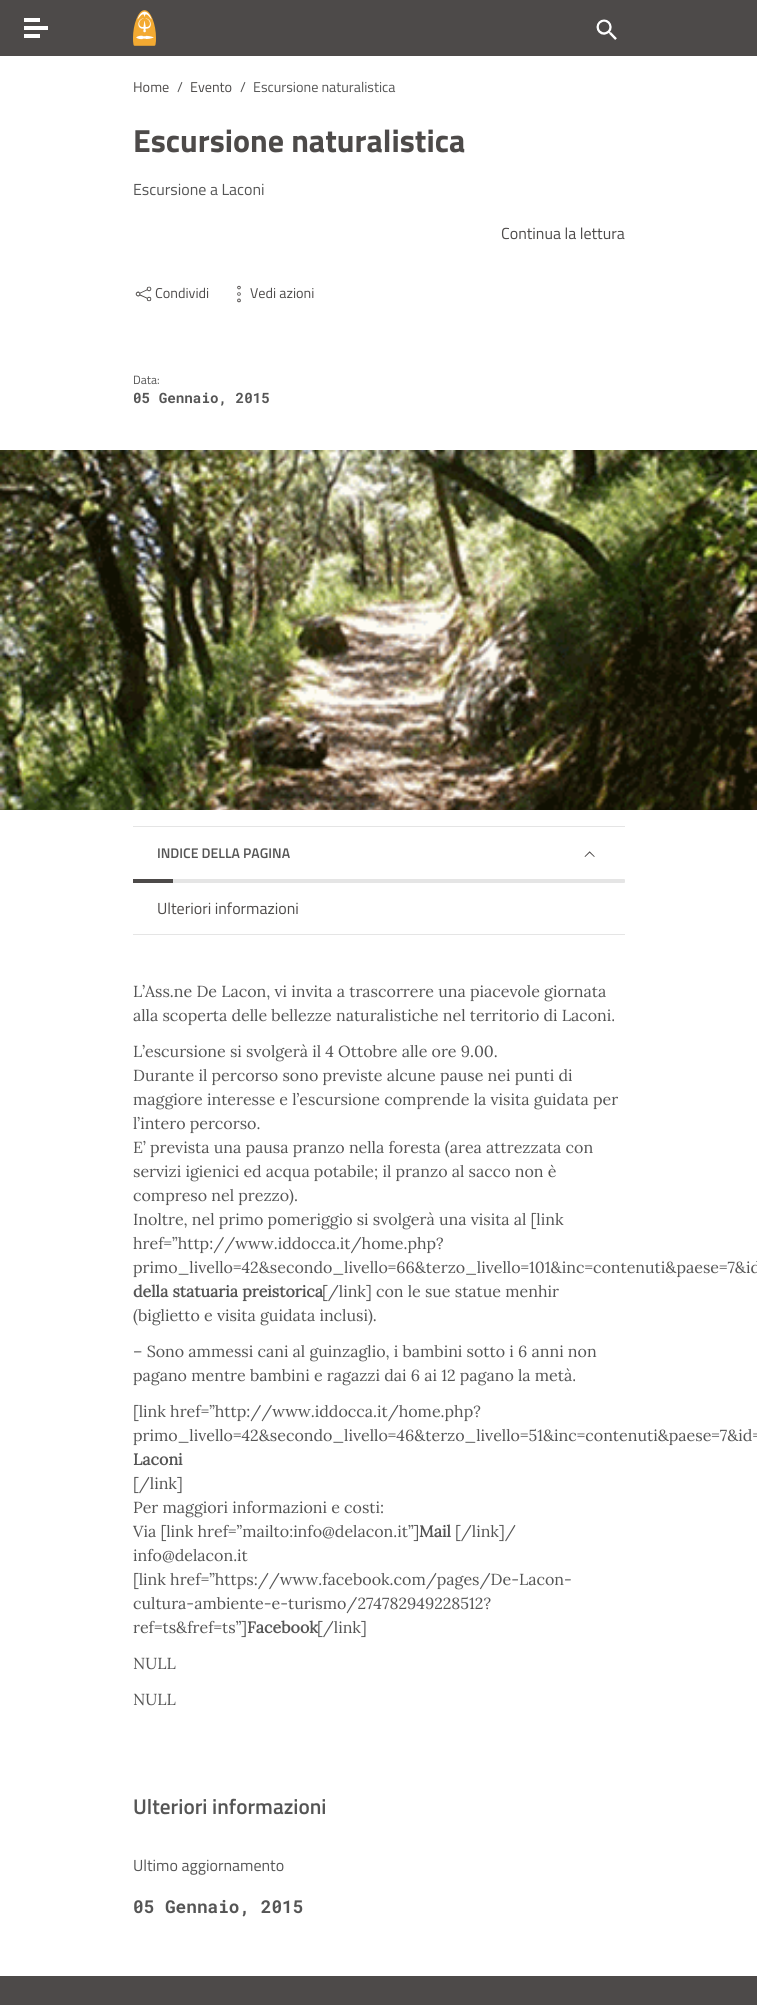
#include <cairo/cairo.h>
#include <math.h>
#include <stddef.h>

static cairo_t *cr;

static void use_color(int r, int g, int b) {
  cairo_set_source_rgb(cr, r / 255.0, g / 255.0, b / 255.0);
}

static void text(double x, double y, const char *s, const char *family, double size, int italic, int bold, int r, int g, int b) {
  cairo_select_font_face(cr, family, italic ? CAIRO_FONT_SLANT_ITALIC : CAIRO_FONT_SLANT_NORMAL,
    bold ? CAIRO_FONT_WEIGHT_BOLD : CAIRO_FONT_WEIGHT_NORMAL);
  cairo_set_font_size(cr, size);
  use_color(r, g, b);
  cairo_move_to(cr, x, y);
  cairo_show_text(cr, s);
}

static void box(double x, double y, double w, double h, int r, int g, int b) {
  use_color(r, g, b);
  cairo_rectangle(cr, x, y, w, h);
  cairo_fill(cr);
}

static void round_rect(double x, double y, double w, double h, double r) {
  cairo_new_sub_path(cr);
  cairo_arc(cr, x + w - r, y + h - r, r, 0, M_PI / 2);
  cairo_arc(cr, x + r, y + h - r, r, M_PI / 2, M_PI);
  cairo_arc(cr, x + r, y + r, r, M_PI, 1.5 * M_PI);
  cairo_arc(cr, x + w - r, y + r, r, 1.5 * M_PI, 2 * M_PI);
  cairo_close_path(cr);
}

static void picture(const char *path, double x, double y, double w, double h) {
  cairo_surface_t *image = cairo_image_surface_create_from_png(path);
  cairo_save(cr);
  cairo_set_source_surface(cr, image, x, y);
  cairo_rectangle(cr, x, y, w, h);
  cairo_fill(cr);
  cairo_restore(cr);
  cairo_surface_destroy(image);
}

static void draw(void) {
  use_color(255, 255, 255);
  cairo_paint(cr);
  box(0, 0, 757, 56, 77, 74, 73);
  box(24, 18, 16, 4, 255, 255, 255);
  box(24, 26, 24, 4, 255, 255, 255);
  box(24, 34, 16, 4, 255, 255, 255);
  picture("img_01.png", 133, 10, 23, 36);
  picture("img_02.png", 596, 19, 21, 21);
  picture("img_03.png", 135, 286, 17, 16);
  picture("img_04.png", 237, 285, 4, 18);
  picture("img_05.png", 0, 450, 757, 360);
  box(133, 826, 492, 1, 229, 229, 229);
  picture("img_06.png", 584, 851, 11, 6);
  round_rect(133, 879, 492, 4, 1);
  cairo_fill(cr);
  box(133, 879, 40, 4, 77, 74, 73);
  box(133, 934, 492, 1, 229, 229, 229);
  box(0, 1976, 757, 29, 77, 74, 73);
  text(133, 92, "Home", "Titillium Web", 14.25, 0, 0, 77, 74, 73);
  text(177, 92, "/", "Titillium Web", 14.25, 0, 0, 85, 85, 85);
  text(190, 92, "Evento", "Titillium Web", 14.25, 0, 0, 77, 74, 73);
  text(240, 92, "/", "Titillium Web", 14.25, 0, 0, 85, 85, 85);
  text(253, 92, "Escursione naturalistica", "Titillium Web", 14.25, 0, 0, 85, 85, 85);
  text(133, 152, "Escursione naturalistica", "Titillium Web", 32, 0, 1, 77, 74, 73);
  text(133, 195, "Escursione a Laconi", "Titillium Web", 16, 0, 0, 85, 85, 85);
  text(501, 239, "Continua la lettura", "Titillium Web", 16, 0, 0, 77, 74, 73);
  text(155, 298, "Condividi", "Titillium Web", 14.25, 0, 0, 77, 74, 73);
  text(250, 298, "Vedi azioni", "Titillium Web", 14.25, 0, 0, 77, 74, 73);
  text(133, 384, "Data:", "Titillium Web", 12, 0, 0, 85, 85, 85);
  text(133, 403, "05 Gennaio, 2015", "Roboto Mono", 14.25, 0, 1, 85, 85, 85);
  text(157, 858, "INDICE DELLA PAGINA", "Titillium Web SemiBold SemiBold", 14, 0, 0, 85, 85, 85);
  text(157, 914, "Ulteriori informazioni", "Titillium Web", 16, 0, 0, 77, 74, 73);
  text(133, 997, "L’Ass.ne De Lacon, vi invita a trascorrere una piacevole giornata", "Lora", 16, 0, 0, 85, 85, 85);
  text(133, 1021, "alla scoperta delle bellezze naturalistiche nel territorio di Laconi.", "Lora", 16, 0, 0, 85, 85, 85);
  text(133, 1057, "L’escursione si svolgerà il 4 Ottobre alle ore 9.00.", "Lora", 16, 0, 0, 85, 85, 85);
  text(133, 1081, "Durante il percorso sono previste alcune pause nei punti di", "Lora", 16, 0, 0, 85, 85, 85);
  text(133, 1105, "maggiore interesse e l’escursione comprende la visita guidata per", "Lora", 16, 0, 0, 85, 85, 85);
  text(133, 1129, "l’intero percorso.", "Lora", 16, 0, 0, 85, 85, 85);
  text(133, 1153, "E’ prevista una pausa pranzo nella foresta (area attrezzata con", "Lora", 16, 0, 0, 85, 85, 85);
  text(133, 1177, "servizi igienici ed acqua potabile; il pranzo al sacco non è", "Lora", 16, 0, 0, 85, 85, 85);
  text(133, 1201, "compreso nel prezzo).", "Lora", 16, 0, 0, 85, 85, 85);
  text(133, 1225, "Inoltre, nel primo pomeriggio si svolgerà una visita al [link", "Lora", 16, 0, 0, 85, 85, 85);
  text(133, 1249, "href=”http://www.iddocca.it/home.php?", "Lora", 16, 0, 0, 85, 85, 85);
  text(133, 1273, "primo_livello=42&secondo_livello=66&terzo_livello=101&inc=contenuti&paese=7&id", "Lora", 16, 0, 0, 85, 85, 85);
  text(133, 1297, "della statuaria preistorica", "Lora", 16, 0, 1, 85, 85, 85);
  text(322, 1297, "[/link] con le sue statue menhir", "Lora", 16, 0, 0, 85, 85, 85);
  text(133, 1321, "(biglietto e visita guidata inclusi).", "Lora", 16, 0, 0, 85, 85, 85);
  text(133, 1357, "– Sono ammessi cani al guinzaglio, i bambini sotto i 6 anni non", "Lora", 16, 0, 0, 85, 85, 85);
  text(133, 1381, "pagano mentre bambini e ragazzi dai 6 ai 12 pagano la metà.", "Lora", 16, 0, 0, 85, 85, 85);
  text(133, 1417, "[link href=”http://www.iddocca.it/home.php?", "Lora", 16, 0, 0, 85, 85, 85);
  text(133, 1441, "primo_livello=42&secondo_livello=46&terzo_livello=51&inc=contenuti&paese=7&id=", "Lora", 16, 0, 0, 85, 85, 85);
  text(133, 1465, "Laconi", "Lora", 16, 0, 1, 85, 85, 85);
  text(133, 1489, "[/link]", "Lora", 16, 0, 0, 85, 85, 85);
  text(133, 1513, "Per maggiori informazioni e costi:", "Lora", 16, 0, 0, 85, 85, 85);
  text(133, 1537, "Via [link href=”mailto:info@delacon.it”]", "Lora", 16, 0, 0, 85, 85, 85);
  text(419, 1537, "Mail", "Lora", 16, 0, 1, 85, 85, 85);
  text(455, 1537, "[/link]/", "Lora", 16, 0, 0, 85, 85, 85);
  text(133, 1561, "info@delacon.it", "Lora", 16, 0, 0, 85, 85, 85);
  text(133, 1585, "[link href=”https://www.facebook.com/pages/De-Lacon-", "Lora", 16, 0, 0, 85, 85, 85);
  text(133, 1609, "cultura-ambiente-e-turismo/274782949228512?", "Lora", 16, 0, 0, 85, 85, 85);
  text(133, 1633, "ref=ts&fref=ts”]", "Lora", 16, 0, 0, 85, 85, 85);
  text(247, 1633, "Facebook", "Lora", 16, 0, 1, 85, 85, 85);
  text(317, 1633, "[/link]", "Lora", 16, 0, 0, 85, 85, 85);
  text(133, 1669, "NULL", "Lora", 16, 0, 0, 85, 85, 85);
  text(133, 1705, "NULL", "Lora", 16, 0, 0, 85, 85, 85);
  text(133, 1814, "Ulteriori informazioni", "Titillium Web SemiBold SemiBold", 21.25, 0, 0, 85, 85, 85);
  text(133, 1871, "Ultimo aggiornamento", "Titillium Web", 16, 0, 0, 85, 85, 85);
  text(133, 1913, "05 Gennaio, 2015", "Roboto Mono", 17.75, 0, 1, 85, 85, 85);
}

int main(void) {
  cairo_surface_t *surface = cairo_image_surface_create(CAIRO_FORMAT_RGB24, 757, 2005);
  cr = cairo_create(surface);
  cairo_font_options_t *options = cairo_font_options_create();
  cairo_font_options_set_hint_metrics(options, CAIRO_HINT_METRICS_OFF);
  cairo_font_options_set_hint_style(options, CAIRO_HINT_STYLE_NONE);
  cairo_set_font_options(cr, options);
  cairo_set_miter_limit(cr, 4);
  draw();
  cairo_surface_write_to_png(surface, "out.png");
  cairo_font_options_destroy(options);
  cairo_destroy(cr);
  cairo_surface_destroy(surface);
  return 0;
}
